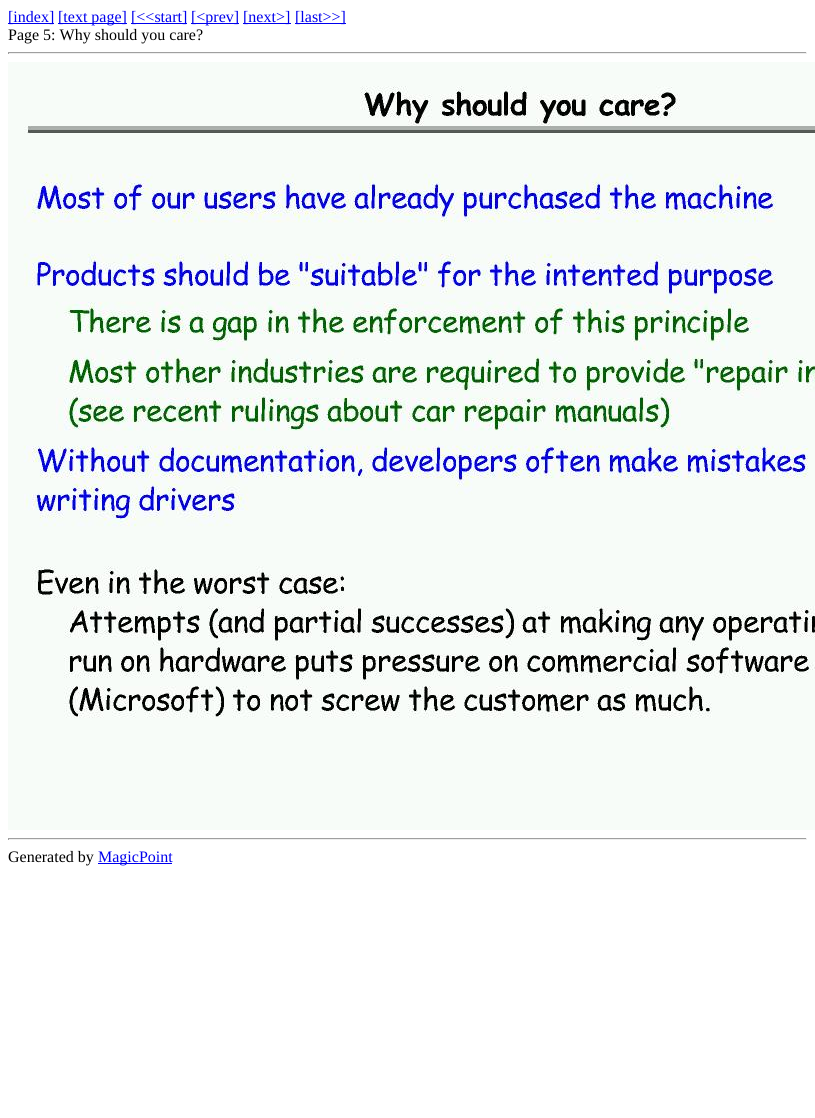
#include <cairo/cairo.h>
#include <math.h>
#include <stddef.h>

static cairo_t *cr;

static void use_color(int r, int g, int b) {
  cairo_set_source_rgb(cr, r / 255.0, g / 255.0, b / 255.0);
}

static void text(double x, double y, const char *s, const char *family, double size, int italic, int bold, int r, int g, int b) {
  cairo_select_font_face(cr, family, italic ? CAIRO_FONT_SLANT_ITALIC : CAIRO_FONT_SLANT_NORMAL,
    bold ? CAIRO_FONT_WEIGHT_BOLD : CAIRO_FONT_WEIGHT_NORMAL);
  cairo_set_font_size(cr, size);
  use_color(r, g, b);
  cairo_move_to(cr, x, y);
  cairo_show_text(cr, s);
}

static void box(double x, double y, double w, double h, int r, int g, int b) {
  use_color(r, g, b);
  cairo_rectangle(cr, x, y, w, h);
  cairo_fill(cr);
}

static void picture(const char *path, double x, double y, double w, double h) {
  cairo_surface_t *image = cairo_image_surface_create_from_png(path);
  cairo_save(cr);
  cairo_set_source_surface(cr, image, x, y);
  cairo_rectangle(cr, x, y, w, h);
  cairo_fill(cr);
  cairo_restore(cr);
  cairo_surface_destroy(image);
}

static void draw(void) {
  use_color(255, 255, 255);
  cairo_paint(cr);
  box(8, 23, 46, 1, 0, 0, 238);
  box(58, 23, 69, 1, 0, 0, 238);
  box(131, 23, 56, 1, 0, 0, 238);
  box(191, 23, 48, 1, 0, 0, 238);
  box(243, 23, 48, 1, 0, 0, 238);
  box(295, 23, 51, 1, 0, 0, 238);
  box(8, 52, 799, 1, 159, 159, 159);
  box(806, 52, 1, 2, 238, 238, 238);
  box(8, 53, 799, 1, 238, 238, 238);
  box(8, 52, 1, 2, 159, 159, 159);
  picture("img_01.png", 8, 62, 807, 768);
  box(8, 838, 799, 1, 159, 159, 159);
  box(806, 838, 1, 2, 238, 238, 238);
  box(8, 839, 799, 1, 238, 238, 238);
  box(8, 838, 1, 2, 159, 159, 159);
  box(98, 863, 74, 1, 0, 0, 238);
  text(8, 22, "[index]", "Liberation Serif", 16, 0, 0, 0, 0, 238);
  text(58, 22, "[text page]", "Liberation Serif", 16, 0, 0, 0, 0, 238);
  text(131, 22, "[<<start]", "Liberation Serif", 16, 0, 0, 0, 0, 238);
  text(191, 22, "[<prev]", "Liberation Serif", 16, 0, 0, 0, 0, 238);
  text(243, 22, "[next>]", "Liberation Serif", 16, 0, 0, 0, 0, 238);
  text(295, 22, "[last>>]", "Liberation Serif", 16, 0, 0, 0, 0, 238);
  text(8, 40, "Page 5: Why should you care?", "Liberation Serif", 16, 0, 0, 0, 0, 0);
  text(8, 862, "Generated by", "Liberation Serif", 16, 0, 0, 0, 0, 0);
  text(98, 862, "MagicPoint", "Liberation Serif", 16, 0, 0, 0, 0, 238);
}

int main(void) {
  cairo_surface_t *surface = cairo_image_surface_create(CAIRO_FORMAT_RGB24, 815, 1118);
  cr = cairo_create(surface);
  cairo_font_options_t *options = cairo_font_options_create();
  cairo_font_options_set_hint_metrics(options, CAIRO_HINT_METRICS_OFF);
  cairo_font_options_set_hint_style(options, CAIRO_HINT_STYLE_NONE);
  cairo_set_font_options(cr, options);
  cairo_set_miter_limit(cr, 4);
  draw();
  cairo_surface_write_to_png(surface, "out.png");
  cairo_font_options_destroy(options);
  cairo_destroy(cr);
  cairo_surface_destroy(surface);
  return 0;
}
